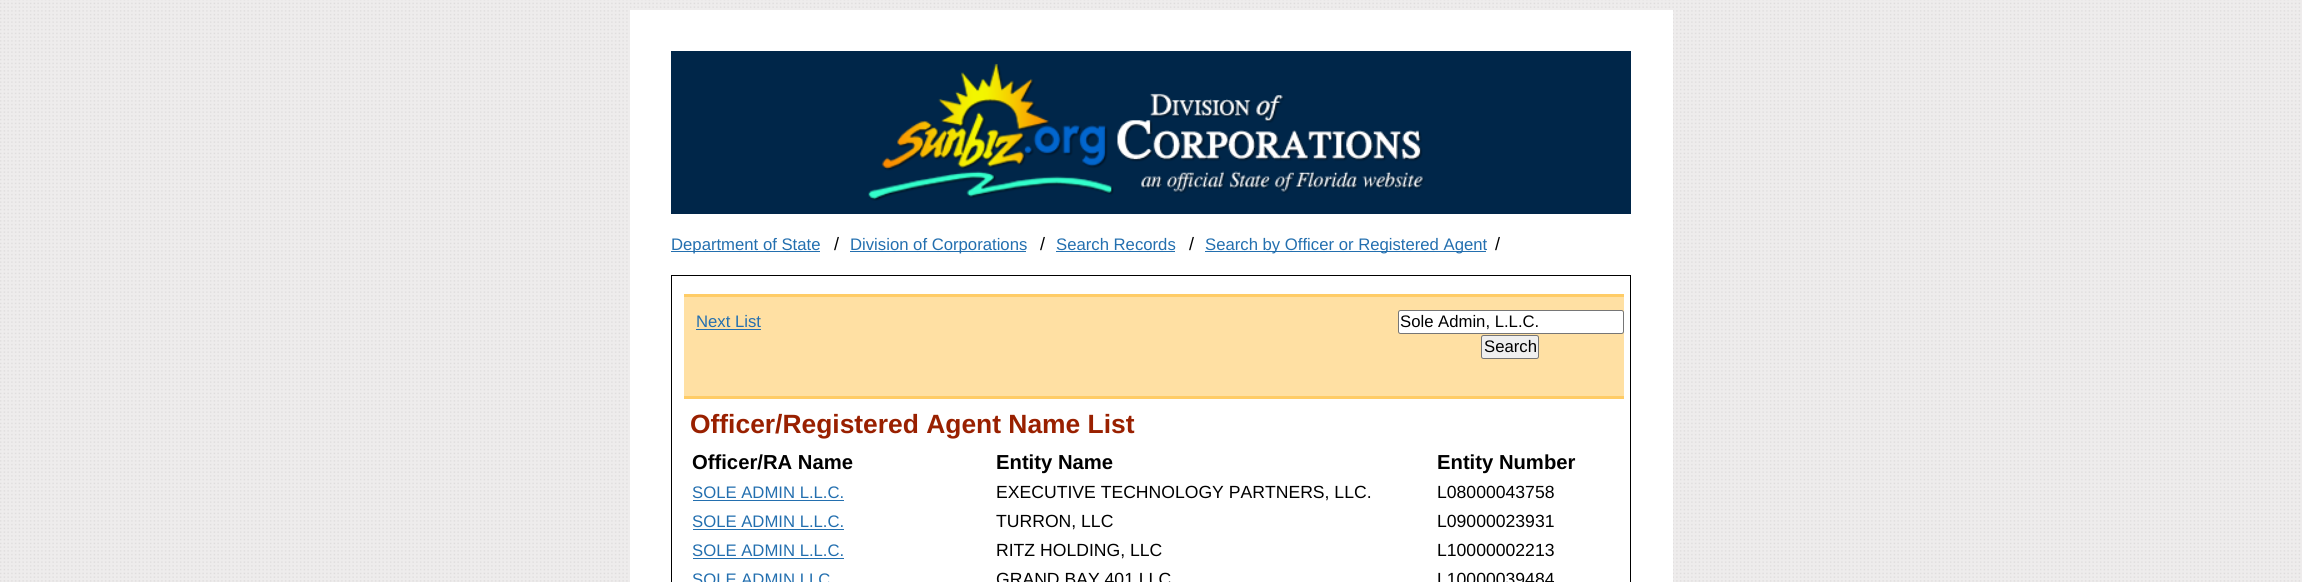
#include <cairo/cairo.h>
#include <math.h>
#include <stddef.h>

static cairo_t *cr;

static void use_color(int r, int g, int b) {
  cairo_set_source_rgb(cr, r / 255.0, g / 255.0, b / 255.0);
}

static void text(double x, double y, const char *s, const char *family, double size, int italic, int bold, int r, int g, int b) {
  cairo_select_font_face(cr, family, italic ? CAIRO_FONT_SLANT_ITALIC : CAIRO_FONT_SLANT_NORMAL,
    bold ? CAIRO_FONT_WEIGHT_BOLD : CAIRO_FONT_WEIGHT_NORMAL);
  cairo_set_font_size(cr, size);
  use_color(r, g, b);
  cairo_move_to(cr, x, y);
  cairo_show_text(cr, s);
}

static void box(double x, double y, double w, double h, int r, int g, int b) {
  use_color(r, g, b);
  cairo_rectangle(cr, x, y, w, h);
  cairo_fill(cr);
}

static void round_rect(double x, double y, double w, double h, double r) {
  cairo_new_sub_path(cr);
  cairo_arc(cr, x + w - r, y + h - r, r, 0, M_PI / 2);
  cairo_arc(cr, x + r, y + h - r, r, M_PI / 2, M_PI);
  cairo_arc(cr, x + r, y + r, r, M_PI, 1.5 * M_PI);
  cairo_arc(cr, x + w - r, y + r, r, 1.5 * M_PI, 2 * M_PI);
  cairo_close_path(cr);
}

static void picture(const char *path, double x, double y, double w, double h) {
  cairo_surface_t *image = cairo_image_surface_create_from_png(path);
  cairo_save(cr);
  cairo_set_source_surface(cr, image, x, y);
  cairo_rectangle(cr, x, y, w, h);
  cairo_fill(cr);
  cairo_restore(cr);
  cairo_surface_destroy(image);
}

static void draw(void) {
  use_color(255, 255, 255);
  cairo_paint(cr);
  picture("img_01.png", 0, 0, 2302, 582);
  box(630, 10, 1043, 572, 255, 255, 255);
  box(671, 51, 960, 163, 0, 38, 73);
  picture("img_02.png", 868, 63, 557, 138);
  box(671, 251, 149, 1, 35, 111, 175);
  box(850, 251, 176, 1, 35, 111, 175);
  box(1056, 251, 119, 1, 35, 111, 175);
  box(1205, 251, 281, 1, 35, 111, 175);
  cairo_rectangle(cr, 671.5, 275.5, 959, 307);
  use_color(0, 0, 0);
  cairo_set_line_width(cr, 1);
  cairo_stroke(cr);
  box(684, 297, 940, 99, 255, 224, 163);
  box(684, 294, 940, 3, 255, 204, 102);
  box(684, 396, 940, 3, 255, 204, 102);
  box(696, 329, 65, 1, 35, 111, 175);
  use_color(255, 255, 255);
  round_rect(1398.5, 310.5, 225, 23, 2);
  cairo_fill_preserve(cr);
  use_color(118, 118, 118);
  cairo_stroke(cr);
  use_color(239, 239, 239);
  round_rect(1481.5, 335.5, 57, 23, 2);
  cairo_fill_preserve(cr);
  use_color(118, 118, 118);
  cairo_stroke(cr);
  box(693, 500, 151, 1, 35, 111, 175);
  box(693, 529, 151, 1, 35, 111, 175);
  box(693, 558, 151, 1, 35, 111, 175);
  text(671, 250, "Department of State", "Liberation Sans", 16.7, 0, 0, 35, 111, 175);
  text(834, 250, "/", "Liberation Sans", 18, 0, 0, 0, 0, 0);
  text(850, 250, "Division of Corporations", "Liberation Sans", 16.7, 0, 0, 35, 111, 175);
  text(1040, 250, "/", "Liberation Sans", 18, 0, 0, 0, 0, 0);
  text(1056, 250, "Search Records", "Liberation Sans", 16.7, 0, 0, 35, 111, 175);
  text(1189, 250, "/", "Liberation Sans", 18, 0, 0, 0, 0, 0);
  text(1205, 250, "Search by Officer or Registered Agent", "Liberation Sans", 16.7, 0, 0, 35, 111, 175);
  text(1495, 250, "/", "Liberation Sans", 18, 0, 0, 0, 0, 0);
  text(696, 327, "Next List", "Liberation Sans", 16.7, 0, 0, 35, 111, 175);
  text(1400, 327, "Sole Admin, L.L.C.", "Liberation Sans", 16.7, 0, 0, 0, 0, 0);
  text(1484, 352, "Search", "Liberation Sans", 16.7, 0, 0, 0, 0, 0);
  text(690, 433, "Officer/Registered Agent Name List", "Liberation Sans", 26.4, 0, 1, 153, 32, 0);
  text(692, 469, "Officer/RA Name", "Liberation Sans", 20.25, 0, 1, 0, 0, 0);
  text(996, 469, "Entity Name", "Liberation Sans", 20.25, 0, 1, 0, 0, 0);
  text(1437, 469, "Entity Number", "Liberation Sans", 20.25, 0, 1, 0, 0, 0);
  text(692, 498, "SOLE ADMIN L.L.C.", "Liberation Sans", 16.7, 0, 0, 35, 111, 175);
  text(996, 498, "EXECUTIVE TECHNOLOGY PARTNERS, LLC.", "Liberation Sans", 17.6, 0, 0, 0, 0, 0);
  text(1437, 498, "L08000043758", "Liberation Sans", 17.6, 0, 0, 0, 0, 0);
  text(692, 527, "SOLE ADMIN L.L.C.", "Liberation Sans", 16.7, 0, 0, 35, 111, 175);
  text(996, 527, "TURRON, LLC", "Liberation Sans", 17.6, 0, 0, 0, 0, 0);
  text(1437, 527, "L09000023931", "Liberation Sans", 17.6, 0, 0, 0, 0, 0);
  text(692, 556, "SOLE ADMIN L.L.C.", "Liberation Sans", 16.7, 0, 0, 35, 111, 175);
  text(996, 556, "RITZ HOLDING, LLC", "Liberation Sans", 17.6, 0, 0, 0, 0, 0);
  text(1437, 556, "L10000002213", "Liberation Sans", 17.6, 0, 0, 0, 0, 0);
  text(692, 585, "SOLE ADMIN LLC", "Liberation Sans", 16.7, 0, 0, 35, 111, 175);
  text(996, 585, "GRAND BAY 401 LLC", "Liberation Sans", 17.6, 0, 0, 0, 0, 0);
  text(1437, 585, "L10000039484", "Liberation Sans", 17.6, 0, 0, 0, 0, 0);
}

int main(void) {
  cairo_surface_t *surface = cairo_image_surface_create(CAIRO_FORMAT_RGB24, 2302, 582);
  cr = cairo_create(surface);
  cairo_font_options_t *options = cairo_font_options_create();
  cairo_font_options_set_hint_metrics(options, CAIRO_HINT_METRICS_OFF);
  cairo_font_options_set_hint_style(options, CAIRO_HINT_STYLE_NONE);
  cairo_set_font_options(cr, options);
  cairo_set_miter_limit(cr, 4);
  draw();
  cairo_surface_write_to_png(surface, "out.png");
  cairo_font_options_destroy(options);
  cairo_destroy(cr);
  cairo_surface_destroy(surface);
  return 0;
}
